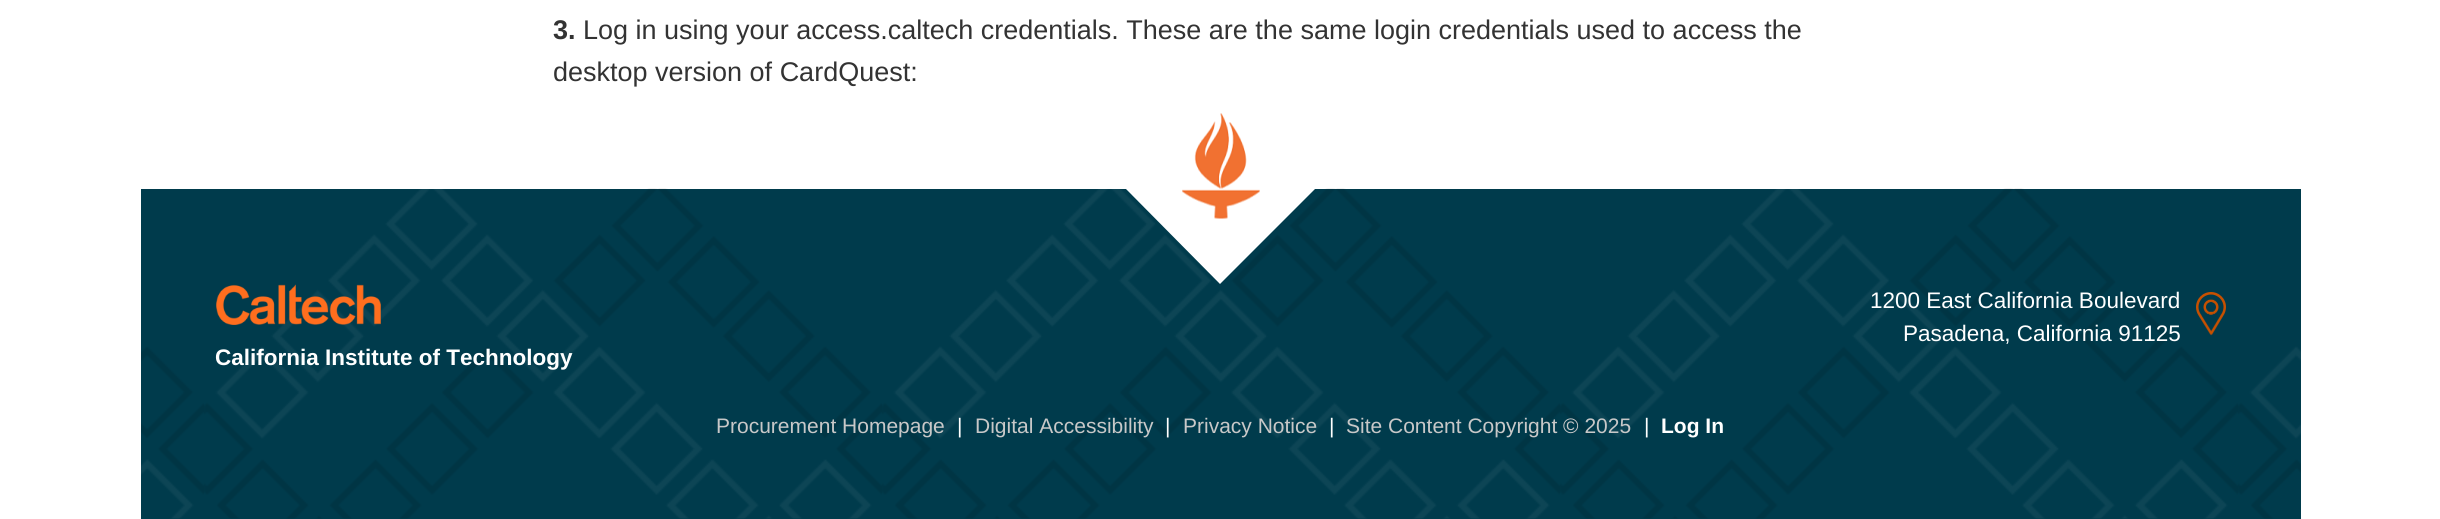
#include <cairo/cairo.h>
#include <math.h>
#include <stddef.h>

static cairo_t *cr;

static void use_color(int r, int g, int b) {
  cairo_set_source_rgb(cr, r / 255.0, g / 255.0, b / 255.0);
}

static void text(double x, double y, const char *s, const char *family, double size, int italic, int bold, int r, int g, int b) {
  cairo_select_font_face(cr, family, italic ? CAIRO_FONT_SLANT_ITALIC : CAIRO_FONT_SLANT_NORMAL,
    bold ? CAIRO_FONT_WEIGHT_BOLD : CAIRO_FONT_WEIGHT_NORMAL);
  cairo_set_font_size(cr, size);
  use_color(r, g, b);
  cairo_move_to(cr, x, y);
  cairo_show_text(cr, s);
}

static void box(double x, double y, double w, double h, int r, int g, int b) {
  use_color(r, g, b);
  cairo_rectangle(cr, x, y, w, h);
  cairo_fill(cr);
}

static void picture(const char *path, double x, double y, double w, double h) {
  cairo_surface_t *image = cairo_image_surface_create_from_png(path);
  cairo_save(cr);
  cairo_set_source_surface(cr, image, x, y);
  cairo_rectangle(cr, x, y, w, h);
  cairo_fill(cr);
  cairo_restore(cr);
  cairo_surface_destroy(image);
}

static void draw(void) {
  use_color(255, 255, 255);
  cairo_paint(cr);
  box(141, 189, 2160, 330, 0, 59, 76);
  picture("img_01.png", 141, 188, 2160, 331);
  use_color(255, 255, 255);
  cairo_new_path(cr);
  cairo_move_to(cr, 1220, 93);
  cairo_line_to(cr, 1316, 188);
  cairo_line_to(cr, 1220, 284);
  cairo_line_to(cr, 1125, 188);
  cairo_close_path(cr);
  cairo_fill(cr);
  picture("img_02.png", 1182, 113, 78, 106);
  picture("img_03.png", 2196, 292, 30, 44);
  picture("img_04.png", 216, 284, 165, 41);
  text(553, 39, "3.", "Liberation Sans", 27, 0, 1, 51, 51, 51);
  text(583, 39, "Log in using your access.caltech credentials. These are the same login credentials used to access the", "Liberation Sans", 27, 0, 0, 51, 51, 51);
  text(553, 81, "desktop version of CardQuest:", "Liberation Sans", 27, 0, 0, 51, 51, 51);
  text(1870, 308, "1200 East California Boulevard", "Liberation Sans", 22.5, 0, 0, 255, 255, 255);
  text(1903, 341, "Pasadena, California 91125", "Liberation Sans", 22.5, 0, 0, 255, 255, 255);
  text(215, 365, "California Institute of Technology", "Liberation Sans", 22.5, 0, 1, 255, 255, 255);
  text(716, 433, "Procurement Homepage", "Liberation Sans", 21, 0, 0, 200, 200, 200);
  text(957, 433, "|", "Liberation Sans", 21, 0, 0, 255, 255, 255);
  text(975, 433, "Digital Accessibility", "Liberation Sans", 21, 0, 0, 200, 200, 200);
  text(1165, 433, "|", "Liberation Sans", 21, 0, 0, 255, 255, 255);
  text(1183, 433, "Privacy Notice", "Liberation Sans", 21, 0, 0, 200, 200, 200);
  text(1329, 433, "|", "Liberation Sans", 21, 0, 0, 255, 255, 255);
  text(1346, 433, "Site Content Copyright © 2025", "Liberation Sans", 21, 0, 0, 200, 200, 200);
  text(1644, 433, "|", "Liberation Sans", 21, 0, 0, 255, 255, 255);
  text(1661, 433, "Log In", "Liberation Sans", 21, 0, 1, 255, 255, 255);
}

int main(void) {
  cairo_surface_t *surface = cairo_image_surface_create(CAIRO_FORMAT_RGB24, 2440, 519);
  cr = cairo_create(surface);
  cairo_font_options_t *options = cairo_font_options_create();
  cairo_font_options_set_hint_metrics(options, CAIRO_HINT_METRICS_OFF);
  cairo_font_options_set_hint_style(options, CAIRO_HINT_STYLE_NONE);
  cairo_set_font_options(cr, options);
  cairo_set_miter_limit(cr, 4);
  draw();
  cairo_surface_write_to_png(surface, "out.png");
  cairo_font_options_destroy(options);
  cairo_destroy(cr);
  cairo_surface_destroy(surface);
  return 0;
}
